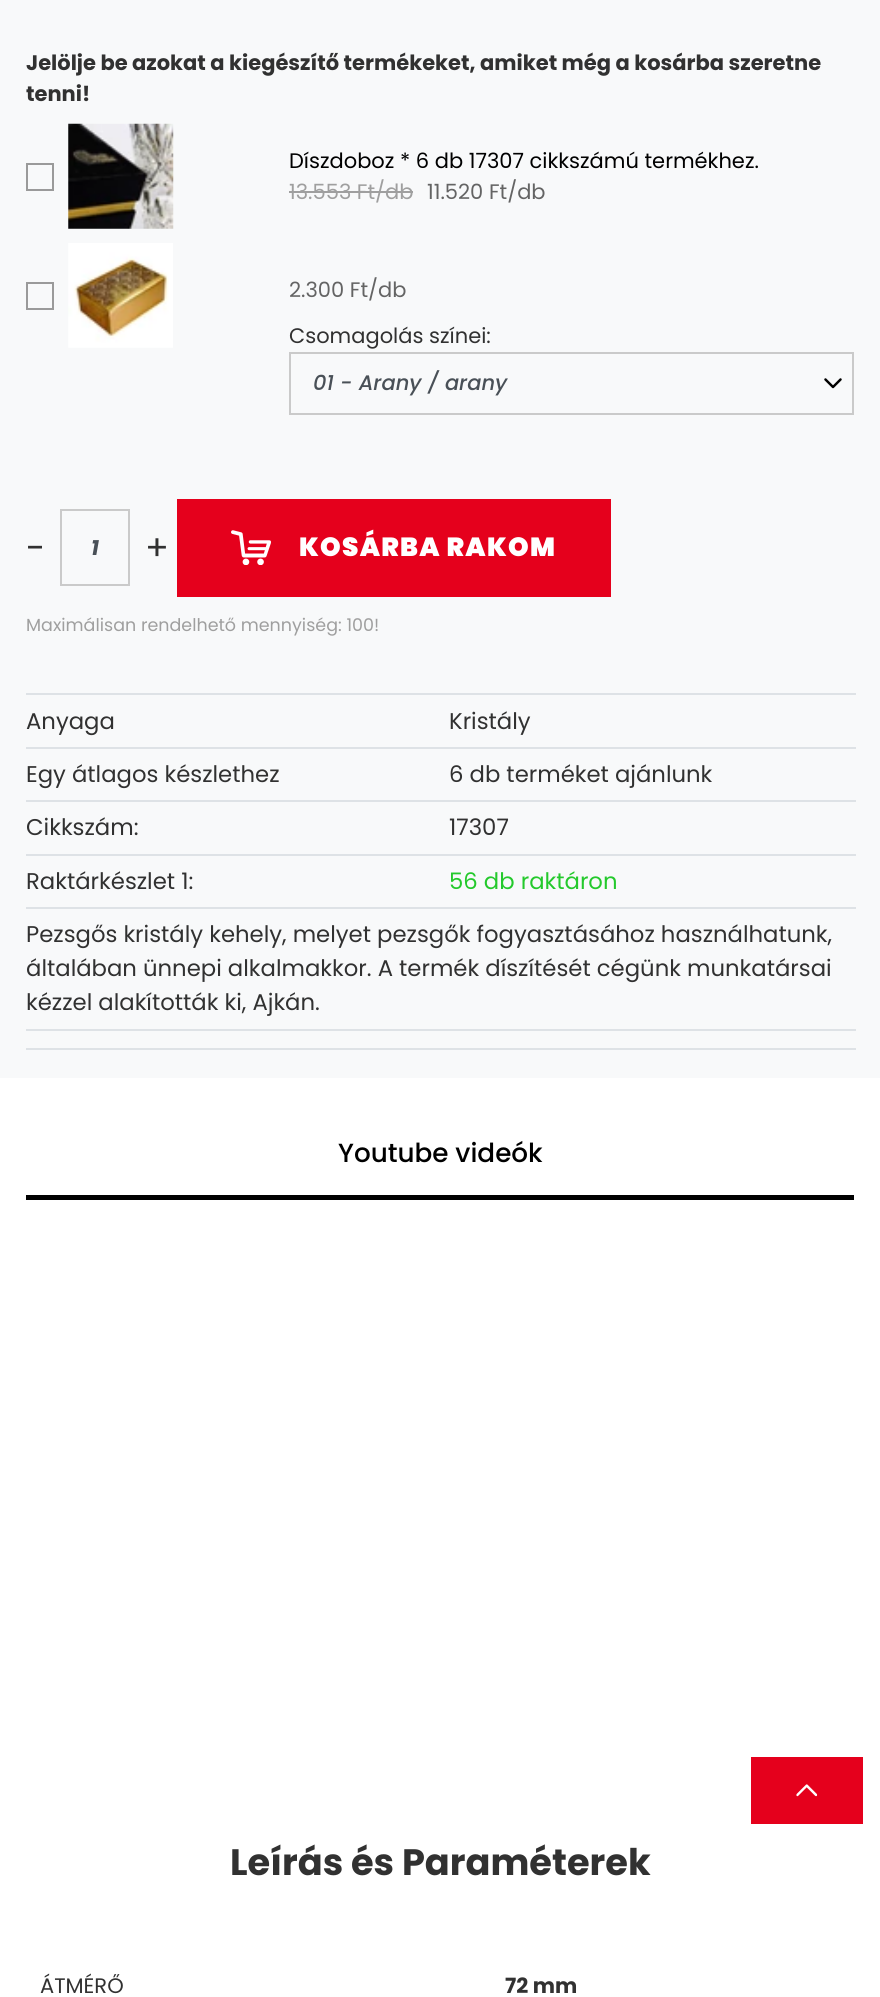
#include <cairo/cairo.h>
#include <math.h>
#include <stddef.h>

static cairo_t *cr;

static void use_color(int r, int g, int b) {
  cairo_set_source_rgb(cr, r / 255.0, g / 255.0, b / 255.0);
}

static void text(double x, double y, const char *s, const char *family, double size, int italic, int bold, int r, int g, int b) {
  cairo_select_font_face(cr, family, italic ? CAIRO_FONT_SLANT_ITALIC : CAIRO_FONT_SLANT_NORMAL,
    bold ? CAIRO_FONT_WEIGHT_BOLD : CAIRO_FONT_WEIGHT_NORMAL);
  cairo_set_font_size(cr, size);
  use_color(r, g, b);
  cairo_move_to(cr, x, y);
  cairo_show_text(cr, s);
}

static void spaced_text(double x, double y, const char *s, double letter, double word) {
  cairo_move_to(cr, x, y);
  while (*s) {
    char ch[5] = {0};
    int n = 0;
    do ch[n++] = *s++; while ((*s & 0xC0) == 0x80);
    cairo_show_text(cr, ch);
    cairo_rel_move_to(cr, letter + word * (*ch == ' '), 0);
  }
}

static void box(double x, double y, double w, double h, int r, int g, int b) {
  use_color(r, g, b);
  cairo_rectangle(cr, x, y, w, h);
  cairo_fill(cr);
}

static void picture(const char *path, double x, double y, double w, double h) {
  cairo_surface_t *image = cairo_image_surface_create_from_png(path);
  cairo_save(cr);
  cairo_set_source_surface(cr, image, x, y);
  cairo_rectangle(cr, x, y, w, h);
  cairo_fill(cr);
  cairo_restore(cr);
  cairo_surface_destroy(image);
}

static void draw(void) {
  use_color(255, 255, 255);
  cairo_paint(cr);
  box(0, 0, 880, 1078, 248, 249, 250);
  cairo_rectangle(cr, 27, 164, 26, 26);
  use_color(154, 154, 154);
  cairo_stroke(cr);
  picture("img_01.png", 68, 123, 106, 106);
  box(289, 191, 124, 2, 159, 159, 159);
  cairo_rectangle(cr, 27, 283, 26, 26);
  use_color(154, 154, 154);
  cairo_stroke(cr);
  picture("img_02.png", 68, 243, 105, 105);
  picture("img_03.png", 824, 378, 18, 11);
  cairo_rectangle(cr, 290, 353, 563, 61);
  use_color(202, 202, 202);
  cairo_stroke(cr);
  cairo_rectangle(cr, 61, 510, 68, 75);
  cairo_stroke(cr);
  box(177, 499, 434, 98, 229, 0, 28);
  picture("img_04.png", 231, 530, 40, 35);
  box(26, 693, 830, 2, 222, 226, 230);
  box(26, 747, 830, 2, 222, 226, 230);
  box(26, 800, 830, 2, 222, 226, 230);
  box(26, 854, 830, 2, 222, 226, 230);
  box(26, 907, 830, 2, 222, 226, 230);
  box(26, 1029, 830, 2, 222, 226, 230);
  box(26, 1048, 830, 2, 222, 226, 230);
  box(26, 1195, 828, 5, 0, 0, 0);
  box(751, 1757, 112, 67, 229, 0, 28);
  picture("img_05.png", 796, 1784, 22, 13);
  text(26, 70, "Jelölje be azokat a kiegészítő termékeket, amiket még a kosárba szeretne", "Poppins", 21, 0, 1, 49, 49, 49);
  text(26, 101, "tenni!", "Poppins", 21, 0, 1, 49, 49, 49);
  text(289, 168, "Díszdoboz * 6 db 17307 cikkszámú termékhez.", "Poppins", 21, 0, 0, 0, 0, 0);
  text(289, 199, "13.553 Ft/db", "Poppins", 21, 0, 0, 159, 159, 159);
  text(427, 199, "11.520 Ft/db", "Poppins", 21, 0, 0, 100, 100, 100);
  text(289, 297, "2.300 Ft/db", "Poppins", 21, 0, 0, 100, 100, 100);
  text(289, 343, "Csomagolás színei:", "Poppins", 21, 0, 0, 49, 49, 49);
  text(313, 390, "01 - Arany / arany", "Poppins Medium", 21, 1, 0, 73, 80, 87);
  text(26, 560, "-", "Poppins", 35, 0, 0, 49, 49, 49);
  text(91, 555, "1", "Poppins", 21, 1, 1, 73, 80, 87);
  text(145, 560, "+", "Poppins", 35, 0, 0, 49, 49, 49);
  cairo_select_font_face(cr, "Poppins Black", CAIRO_FONT_SLANT_NORMAL, CAIRO_FONT_WEIGHT_NORMAL);
  cairo_set_font_size(cr, 26.25);
  use_color(255, 255, 255);
  spaced_text(299, 556, "KOSÁRBA RAKOM", 1.25, 0);
  text(26, 631, "Maximálisan rendelhető mennyiség: 100!", "Poppins", 17.5, 0, 0, 159, 159, 159);
  text(26, 729, "Anyaga", "Poppins", 22.75, 0, 0, 49, 49, 49);
  text(449, 729, "Kristály", "Poppins", 22.75, 0, 0, 49, 49, 49);
  text(26, 782, "Egy átlagos készlethez", "Poppins", 22.75, 0, 0, 49, 49, 49);
  text(449, 782, "6 db terméket ajánlunk", "Poppins", 22.75, 0, 0, 49, 49, 49);
  text(26, 835, "Cikkszám:", "Poppins", 22.75, 0, 0, 49, 49, 49);
  text(449, 835, "17307", "Poppins", 22.75, 0, 0, 49, 49, 49);
  text(26, 889, "Raktárkészlet 1:", "Poppins", 22.75, 0, 0, 49, 49, 49);
  text(449, 889, "56 db raktáron", "Poppins", 22.75, 0, 0, 36, 201, 44);
  text(26, 942, "Pezsgős kristály kehely, melyet pezsgők fogyasztásához használhatunk,", "Poppins", 22.75, 0, 0, 49, 49, 49);
  text(26, 976, "általában ünnepi alkalmakkor. A termék díszítését cégünk munkatársai", "Poppins", 22.75, 0, 0, 49, 49, 49);
  text(26, 1010, "kézzel alakították ki, Ajkán.", "Poppins", 22.75, 0, 0, 49, 49, 49);
  text(338, 1162, "Youtube videók", "Poppins Medium", 26.25, 0, 0, 0, 0, 0);
  text(230, 1875, "Leírás és Paraméterek", "Poppins", 36.75, 0, 1, 49, 49, 49);
  text(40, 1993, "ÁTMÉRŐ", "Poppins", 21, 0, 0, 49, 49, 49);
  text(505, 1993, "72 mm", "Poppins", 21, 0, 1, 49, 49, 49);
}

int main(void) {
  cairo_surface_t *surface = cairo_image_surface_create(CAIRO_FORMAT_RGB24, 880, 1997);
  cr = cairo_create(surface);
  cairo_font_options_t *options = cairo_font_options_create();
  cairo_font_options_set_hint_metrics(options, CAIRO_HINT_METRICS_OFF);
  cairo_font_options_set_hint_style(options, CAIRO_HINT_STYLE_NONE);
  cairo_set_font_options(cr, options);
  cairo_set_miter_limit(cr, 4);
  draw();
  cairo_surface_write_to_png(surface, "out.png");
  cairo_font_options_destroy(options);
  cairo_destroy(cr);
  cairo_surface_destroy(surface);
  return 0;
}
